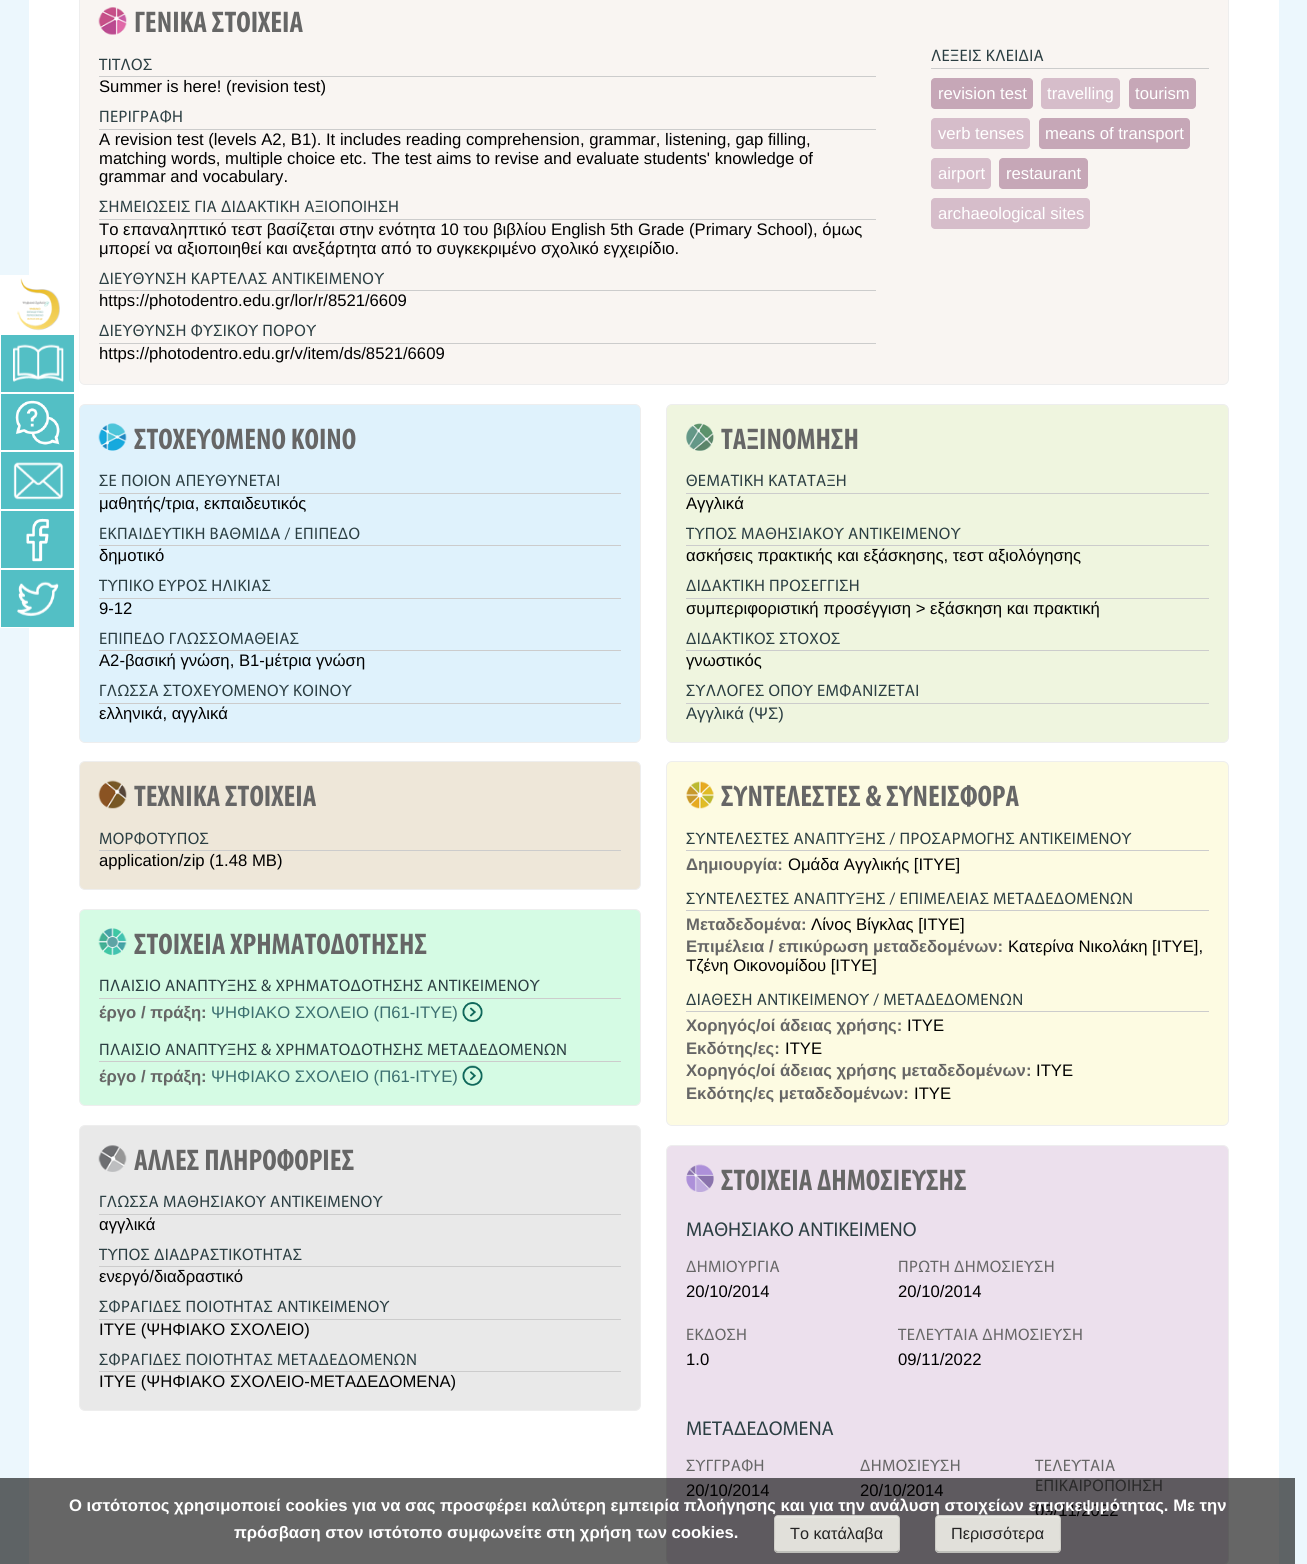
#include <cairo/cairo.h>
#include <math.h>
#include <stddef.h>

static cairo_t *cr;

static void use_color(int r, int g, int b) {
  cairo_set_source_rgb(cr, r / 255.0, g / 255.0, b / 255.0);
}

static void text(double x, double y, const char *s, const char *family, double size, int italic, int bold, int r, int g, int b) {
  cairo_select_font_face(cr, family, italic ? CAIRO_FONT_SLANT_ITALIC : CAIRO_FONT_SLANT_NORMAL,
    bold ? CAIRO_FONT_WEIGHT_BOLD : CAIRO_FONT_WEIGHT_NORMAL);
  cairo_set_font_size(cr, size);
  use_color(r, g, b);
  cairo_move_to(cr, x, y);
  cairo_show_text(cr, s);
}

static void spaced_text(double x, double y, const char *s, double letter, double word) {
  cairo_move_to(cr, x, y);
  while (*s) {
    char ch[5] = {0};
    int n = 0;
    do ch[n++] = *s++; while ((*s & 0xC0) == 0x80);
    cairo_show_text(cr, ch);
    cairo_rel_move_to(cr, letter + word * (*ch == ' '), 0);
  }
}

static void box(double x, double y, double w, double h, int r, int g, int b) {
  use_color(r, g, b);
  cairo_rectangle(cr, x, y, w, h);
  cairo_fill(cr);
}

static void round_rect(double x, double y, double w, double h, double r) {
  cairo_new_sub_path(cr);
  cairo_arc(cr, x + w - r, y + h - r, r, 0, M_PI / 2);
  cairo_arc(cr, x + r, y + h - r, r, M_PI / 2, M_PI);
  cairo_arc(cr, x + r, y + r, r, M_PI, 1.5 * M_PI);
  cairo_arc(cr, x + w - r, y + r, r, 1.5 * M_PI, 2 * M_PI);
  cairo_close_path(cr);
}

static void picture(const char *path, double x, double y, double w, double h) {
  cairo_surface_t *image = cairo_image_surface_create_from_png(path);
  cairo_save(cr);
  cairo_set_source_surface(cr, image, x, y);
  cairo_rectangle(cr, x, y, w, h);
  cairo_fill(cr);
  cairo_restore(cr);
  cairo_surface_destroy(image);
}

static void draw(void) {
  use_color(236, 247, 253);
  cairo_paint(cr);
  box(0, 275, 29, 59, 255, 255, 255);
  box(29, 0, 1250, 1564, 255, 255, 255);
  picture("img_01.png", 17, 278, 43, 53);
  box(1, 335, 73, 57, 83, 191, 197);
  picture("img_02.png", 13, 344, 51, 38);
  cairo_rectangle(cr, 0.5, 334.5, 74, 58);
  use_color(255, 255, 255);
  cairo_set_line_width(cr, 1);
  cairo_stroke(cr);
  box(1, 394, 73, 56, 83, 191, 197);
  picture("img_03.png", 15, 400, 45, 45);
  cairo_rectangle(cr, 0.5, 393.5, 74, 57);
  use_color(255, 255, 255);
  cairo_stroke(cr);
  box(1, 452, 73, 57, 83, 191, 197);
  picture("img_04.png", 13, 462, 51, 38);
  cairo_rectangle(cr, 0.5, 451.5, 74, 58);
  use_color(255, 255, 255);
  cairo_stroke(cr);
  box(1, 511, 73, 57, 83, 191, 197);
  picture("img_05.png", 26, 518, 23, 44);
  cairo_rectangle(cr, 0.5, 510.5, 74, 58);
  use_color(255, 255, 255);
  cairo_stroke(cr);
  box(1, 570, 73, 57, 83, 191, 197);
  picture("img_06.png", 17, 581, 42, 36);
  cairo_rectangle(cr, 0.5, 569.5, 74, 58);
  use_color(255, 255, 255);
  cairo_stroke(cr);
  use_color(249, 245, 242);
  round_rect(79.5, -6.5, 1149, 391, 5.5);
  cairo_fill_preserve(cr);
  use_color(238, 238, 238);
  cairo_stroke(cr);
  picture("img_07.png", 98, 7, 29, 28);
  box(99, 76, 777, 1, 204, 204, 204);
  box(99, 129, 777, 1, 204, 204, 204);
  box(99, 219, 777, 1, 204, 204, 204);
  box(99, 290, 777, 1, 204, 204, 204);
  box(99, 343, 777, 1, 204, 204, 204);
  box(931, 68, 278, 1, 204, 204, 204);
  use_color(198, 167, 183);
  round_rect(931, 78, 102, 31, 4);
  cairo_fill(cr);
  use_color(214, 189, 202);
  round_rect(1041, 78, 79, 31, 4);
  cairo_fill(cr);
  use_color(198, 167, 183);
  round_rect(1129, 78, 67, 31, 4);
  cairo_fill(cr);
  use_color(214, 189, 202);
  round_rect(931, 118, 99, 31, 4);
  cairo_fill(cr);
  use_color(198, 167, 183);
  round_rect(1039, 118, 151, 31, 4);
  cairo_fill(cr);
  use_color(214, 189, 202);
  round_rect(931, 158, 60, 31, 4);
  cairo_fill(cr);
  use_color(198, 167, 183);
  round_rect(999, 158, 89, 31, 4);
  cairo_fill(cr);
  use_color(214, 189, 202);
  round_rect(931, 198, 159, 31, 4);
  cairo_fill(cr);
  use_color(223, 242, 252);
  round_rect(79.5, 404.5, 561, 338, 5.5);
  cairo_fill_preserve(cr);
  use_color(238, 238, 238);
  cairo_stroke(cr);
  picture("img_08.png", 98, 423, 29, 28);
  box(99, 493, 522, 1, 204, 204, 204);
  box(99, 545, 522, 1, 204, 204, 204);
  box(99, 598, 522, 1, 204, 204, 204);
  box(99, 650, 522, 1, 204, 204, 204);
  box(99, 703, 522, 1, 204, 204, 204);
  use_color(238, 231, 217);
  round_rect(79.5, 761.5, 561, 128, 5.5);
  cairo_fill_preserve(cr);
  use_color(238, 238, 238);
  cairo_stroke(cr);
  picture("img_09.png", 98, 780, 29, 29);
  box(99, 850, 522, 1, 204, 204, 204);
  use_color(213, 251, 228);
  round_rect(79.5, 909.5, 561, 196, 5.5);
  cairo_fill_preserve(cr);
  use_color(238, 238, 238);
  cairo_stroke(cr);
  picture("img_10.png", 98, 928, 29, 27);
  box(99, 998, 522, 1, 204, 204, 204);
  picture("img_11.png", 462, 1002, 21, 20);
  box(99, 1061, 522, 1, 204, 204, 204);
  picture("img_12.png", 462, 1065, 21, 21);
  use_color(233, 233, 233);
  round_rect(79.5, 1125.5, 561, 285, 5.5);
  cairo_fill_preserve(cr);
  use_color(238, 238, 238);
  cairo_stroke(cr);
  picture("img_13.png", 98, 1145, 29, 27);
  box(99, 1214, 522, 1, 204, 204, 204);
  box(99, 1266, 522, 1, 204, 204, 204);
  box(99, 1319, 522, 1, 204, 204, 204);
  box(99, 1371, 522, 1, 204, 204, 204);
  use_color(239, 245, 223);
  round_rect(666.5, 404.5, 562, 338, 5.5);
  cairo_fill_preserve(cr);
  use_color(238, 238, 238);
  cairo_stroke(cr);
  picture("img_14.png", 686, 423, 28, 28);
  box(686, 493, 523, 1, 204, 204, 204);
  box(686, 545, 523, 1, 204, 204, 204);
  box(686, 598, 523, 1, 204, 204, 204);
  box(686, 650, 523, 1, 204, 204, 204);
  box(686, 703, 523, 1, 204, 204, 204);
  use_color(253, 251, 226);
  round_rect(666.5, 761.5, 562, 364, 5.5);
  cairo_fill_preserve(cr);
  use_color(238, 238, 238);
  cairo_stroke(cr);
  picture("img_15.png", 686, 781, 28, 28);
  box(686, 850, 523, 1, 204, 204, 204);
  box(686, 910, 523, 1, 204, 204, 204);
  box(686, 1011, 523, 1, 204, 204, 204);
  use_color(236, 224, 237);
  round_rect(666.5, 1145.5, 562, 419, 5.5);
  cairo_fill_preserve(cr);
  use_color(238, 238, 238);
  cairo_stroke(cr);
  picture("img_16.png", 686, 1164, 28, 28);
  text(134, 32, "ΓΕΝΙΚΑ ΣΤΟΙΧΕΙΑ", "Myriad", 30, 0, 1, 102, 102, 102);
  cairo_select_font_face(cr, "Myriad", CAIRO_FONT_SLANT_NORMAL, CAIRO_FONT_WEIGHT_NORMAL);
  cairo_set_font_size(cr, 16.67);
  use_color(43, 62, 66);
  spaced_text(99, 70, "ΤΙΤΛΟΣ", 0.35, 0);
  text(99, 92, "Summer is here! (revision test)", "Liberation Sans", 16.67, 0, 0, 0, 0, 0);
  cairo_select_font_face(cr, "Myriad", CAIRO_FONT_SLANT_NORMAL, CAIRO_FONT_WEIGHT_NORMAL);
  use_color(43, 62, 66);
  spaced_text(99, 122, "ΠΕΡΙΓΡΑΦΗ", 0.35, 0);
  text(99, 145, "A revision test (levels A2, B1). It includes reading comprehension, grammar, listening, gap filling,", "Liberation Sans", 16.67, 0, 0, 0, 0, 0);
  text(99, 164, "matching words, multiple choice etc. The test aims to revise and evaluate students' knowledge of", "Liberation Sans", 16.67, 0, 0, 0, 0, 0);
  text(99, 182, "grammar and vocabulary.", "Liberation Sans", 16.67, 0, 0, 0, 0, 0);
  cairo_select_font_face(cr, "Myriad", CAIRO_FONT_SLANT_NORMAL, CAIRO_FONT_WEIGHT_NORMAL);
  use_color(43, 62, 66);
  spaced_text(99, 212, "ΣΗΜΕΙΩΣΕΙΣ ΓΙΑ ΔΙΔΑΚΤΙΚΗ ΑΞΙΟΠΟΙΗΣΗ", 0.35, 0);
  text(99, 235, "Το επαναληπτικό τεστ βασίζεται στην ενότητα 10 του βιβλίου English 5th Grade (Primary School), όμως", "Liberation Sans", 16.67, 0, 0, 0, 0, 0);
  text(99, 254, "μπορεί να αξιοποιηθεί και ανεξάρτητα από το συγκεκριμένο σχολικό εγχειρίδιο.", "Liberation Sans", 16.67, 0, 0, 0, 0, 0);
  cairo_select_font_face(cr, "Myriad", CAIRO_FONT_SLANT_NORMAL, CAIRO_FONT_WEIGHT_NORMAL);
  use_color(43, 62, 66);
  spaced_text(99, 284, "ΔΙΕΥΘΥΝΣΗ ΚΑΡΤΕΛΑΣ ΑΝΤΙΚΕΙΜΕΝΟΥ", 0.35, 0);
  text(99, 306, "https://photodentro.edu.gr/lor/r/8521/6609", "Liberation Sans", 16.67, 0, 0, 0, 0, 0);
  cairo_select_font_face(cr, "Myriad", CAIRO_FONT_SLANT_NORMAL, CAIRO_FONT_WEIGHT_NORMAL);
  use_color(43, 62, 66);
  spaced_text(99, 336, "ΔΙΕΥΘΥΝΣΗ ΦΥΣΙΚΟΥ ΠΟΡΟΥ", 0.35, 0);
  text(99, 359, "https://photodentro.edu.gr/v/item/ds/8521/6609", "Liberation Sans", 16.67, 0, 0, 0, 0, 0);
  cairo_select_font_face(cr, "Myriad", CAIRO_FONT_SLANT_NORMAL, CAIRO_FONT_WEIGHT_NORMAL);
  use_color(43, 62, 66);
  spaced_text(931, 61, "ΛΕΞΕΙΣ ΚΛΕΙΔΙΑ", 0.35, 0);
  text(938, 99, "revision test", "Liberation Sans", 16.67, 0, 0, 255, 255, 255);
  text(1047, 99, "travelling", "Liberation Sans", 16.67, 0, 0, 255, 255, 255);
  text(1135, 99, "tourism", "Liberation Sans", 16.67, 0, 0, 255, 255, 255);
  text(938, 139, "verb tenses", "Liberation Sans", 16.67, 0, 0, 255, 255, 255);
  text(1045, 139, "means of transport", "Liberation Sans", 16.67, 0, 0, 255, 255, 255);
  text(938, 179, "airport", "Liberation Sans", 16.67, 0, 0, 255, 255, 255);
  text(1006, 179, "restaurant", "Liberation Sans", 16.67, 0, 0, 255, 255, 255);
  text(938, 219, "archaeological sites", "Liberation Sans", 16.67, 0, 0, 255, 255, 255);
  text(134, 449, "ΣΤΟΧΕΥΟΜΕΝΟ ΚΟΙΝΟ", "Myriad", 30, 0, 1, 102, 102, 102);
  cairo_select_font_face(cr, "Myriad", CAIRO_FONT_SLANT_NORMAL, CAIRO_FONT_WEIGHT_NORMAL);
  cairo_set_font_size(cr, 16.67);
  use_color(43, 62, 66);
  spaced_text(99, 486, "ΣΕ ΠΟΙΟΝ ΑΠΕΥΘΥΝΕΤΑΙ", 0.35, 0);
  text(99, 509, "μαθητής/τρια, εκπαιδευτικός", "Liberation Sans", 16.67, 0, 0, 0, 0, 0);
  cairo_select_font_face(cr, "Myriad", CAIRO_FONT_SLANT_NORMAL, CAIRO_FONT_WEIGHT_NORMAL);
  use_color(43, 62, 66);
  spaced_text(99, 539, "ΕΚΠΑΙΔΕΥΤΙΚΗ ΒΑΘΜΙΔΑ / ΕΠΙΠΕΔΟ", 0.35, 0);
  text(99, 561, "δημοτικό", "Liberation Sans", 16.67, 0, 0, 0, 0, 0);
  cairo_select_font_face(cr, "Myriad", CAIRO_FONT_SLANT_NORMAL, CAIRO_FONT_WEIGHT_NORMAL);
  use_color(43, 62, 66);
  spaced_text(99, 591, "ΤΥΠΙΚΟ ΕΥΡΟΣ ΗΛΙΚΙΑΣ", 0.35, 0);
  text(99, 614, "9-12", "Liberation Sans", 16.67, 0, 0, 0, 0, 0);
  cairo_select_font_face(cr, "Myriad", CAIRO_FONT_SLANT_NORMAL, CAIRO_FONT_WEIGHT_NORMAL);
  use_color(43, 62, 66);
  spaced_text(99, 644, "ΕΠΙΠΕΔΟ ΓΛΩΣΣΟΜΑΘΕΙΑΣ", 0.35, 0);
  text(99, 666, "Α2-βασική γνώση, B1-μέτρια γνώση", "Liberation Sans", 16.67, 0, 0, 0, 0, 0);
  cairo_select_font_face(cr, "Myriad", CAIRO_FONT_SLANT_NORMAL, CAIRO_FONT_WEIGHT_NORMAL);
  use_color(43, 62, 66);
  spaced_text(99, 696, "ΓΛΩΣΣΑ ΣΤΟΧΕΥΟΜΕΝΟΥ ΚΟΙΝΟΥ", 0.35, 0);
  text(99, 719, "ελληνικά, αγγλικά", "Liberation Sans", 16.67, 0, 0, 0, 0, 0);
  text(134, 806, "ΤΕΧΝΙΚΑ ΣΤΟΙΧΕΙΑ", "Myriad", 30, 0, 1, 102, 102, 102);
  cairo_select_font_face(cr, "Myriad", CAIRO_FONT_SLANT_NORMAL, CAIRO_FONT_WEIGHT_NORMAL);
  cairo_set_font_size(cr, 16.67);
  use_color(43, 62, 66);
  spaced_text(99, 844, "ΜΟΡΦΟΤΥΠΟΣ", 0.35, 0);
  text(99, 866, "application/zip (1.48 MB)", "Liberation Sans", 16.67, 0, 0, 0, 0, 0);
  text(134, 954, "ΣΤΟΙΧΕΙΑ ΧΡΗΜΑΤΟΔΟΤΗΣΗΣ", "Myriad", 30, 0, 1, 102, 102, 102);
  cairo_select_font_face(cr, "Myriad", CAIRO_FONT_SLANT_NORMAL, CAIRO_FONT_WEIGHT_NORMAL);
  cairo_set_font_size(cr, 16.67);
  use_color(43, 62, 66);
  spaced_text(99, 991, "ΠΛΑΙΣΙΟ ΑΝΑΠΤΥΞΗΣ & ΧΡΗΜΑΤΟΔΟΤΗΣΗΣ ΑΝΤΙΚΕΙΜΕΝΟΥ", 0.35, 0);
  text(99, 1018, "έργο / πράξη:", "Liberation Sans", 16.67, 0, 1, 102, 102, 102);
  text(211, 1018, "ΨΗΦΙΑΚΟ ΣΧΟΛΕΙΟ (Π61-ΙΤΥΕ)", "Liberation Sans", 16.67, 0, 0, 60, 111, 112);
  cairo_select_font_face(cr, "Myriad", CAIRO_FONT_SLANT_NORMAL, CAIRO_FONT_WEIGHT_NORMAL);
  use_color(43, 62, 66);
  spaced_text(99, 1055, "ΠΛΑΙΣΙΟ ΑΝΑΠΤΥΞΗΣ & ΧΡΗΜΑΤΟΔΟΤΗΣΗΣ ΜΕΤΑΔΕΔΟΜΕΝΩΝ", 0.35, 0);
  text(99, 1082, "έργο / πράξη:", "Liberation Sans", 16.67, 0, 1, 102, 102, 102);
  text(211, 1082, "ΨΗΦΙΑΚΟ ΣΧΟΛΕΙΟ (Π61-ΙΤΥΕ)", "Liberation Sans", 16.67, 0, 0, 60, 111, 112);
  text(134, 1170, "ΑΛΛΕΣ ΠΛΗΡΟΦΟΡΙΕΣ", "Myriad", 30, 0, 1, 102, 102, 102);
  cairo_select_font_face(cr, "Myriad", CAIRO_FONT_SLANT_NORMAL, CAIRO_FONT_WEIGHT_NORMAL);
  cairo_set_font_size(cr, 16.67);
  use_color(43, 62, 66);
  spaced_text(99, 1207, "ΓΛΩΣΣΑ ΜΑΘΗΣΙΑΚΟΥ ΑΝΤΙΚΕΙΜΕΝΟΥ", 0.35, 0);
  text(99, 1230, "αγγλικά", "Liberation Sans", 16.67, 0, 0, 0, 0, 0);
  cairo_select_font_face(cr, "Myriad", CAIRO_FONT_SLANT_NORMAL, CAIRO_FONT_WEIGHT_NORMAL);
  use_color(43, 62, 66);
  spaced_text(99, 1260, "ΤΥΠΟΣ ΔΙΑΔΡΑΣΤΙΚΟΤΗΤΑΣ", 0.35, 0);
  text(99, 1282, "ενεργό/διαδραστικό", "Liberation Sans", 16.67, 0, 0, 0, 0, 0);
  cairo_select_font_face(cr, "Myriad", CAIRO_FONT_SLANT_NORMAL, CAIRO_FONT_WEIGHT_NORMAL);
  use_color(43, 62, 66);
  spaced_text(99, 1312, "ΣΦΡΑΓΙΔΕΣ ΠΟΙΟΤΗΤΑΣ ΑΝΤΙΚΕΙΜΕΝΟΥ", 0.35, 0);
  text(99, 1335, "ΙΤΥΕ (ΨΗΦΙΑΚΟ ΣΧΟΛΕΙΟ)", "Liberation Sans", 16.67, 0, 0, 0, 0, 0);
  cairo_select_font_face(cr, "Myriad", CAIRO_FONT_SLANT_NORMAL, CAIRO_FONT_WEIGHT_NORMAL);
  use_color(43, 62, 66);
  spaced_text(99, 1365, "ΣΦΡΑΓΙΔΕΣ ΠΟΙΟΤΗΤΑΣ ΜΕΤΑΔΕΔΟΜΕΝΩΝ", 0.35, 0);
  text(99, 1387, "ΙΤΥΕ (ΨΗΦΙΑΚΟ ΣΧΟΛΕΙΟ-ΜΕΤΑΔΕΔΟΜΕΝΑ)", "Liberation Sans", 16.67, 0, 0, 0, 0, 0);
  text(721, 449, "ΤΑΞΙΝΟΜΗΣΗ", "Myriad", 30, 0, 1, 102, 102, 102);
  cairo_select_font_face(cr, "Myriad", CAIRO_FONT_SLANT_NORMAL, CAIRO_FONT_WEIGHT_NORMAL);
  cairo_set_font_size(cr, 16.67);
  use_color(43, 62, 66);
  spaced_text(686, 486, "ΘΕΜΑΤΙΚΗ ΚΑΤΑΤΑΞΗ", 0.35, 0);
  text(686, 509, "Αγγλικά", "Liberation Sans", 16.67, 0, 0, 0, 0, 0);
  cairo_select_font_face(cr, "Myriad", CAIRO_FONT_SLANT_NORMAL, CAIRO_FONT_WEIGHT_NORMAL);
  use_color(43, 62, 66);
  spaced_text(686, 539, "ΤΥΠΟΣ ΜΑΘΗΣΙΑΚΟΥ ΑΝΤΙΚΕΙΜΕΝΟΥ", 0.35, 0);
  text(686, 561, "ασκήσεις πρακτικής και εξάσκησης, τεστ αξιολόγησης", "Liberation Sans", 16.67, 0, 0, 0, 0, 0);
  cairo_select_font_face(cr, "Myriad", CAIRO_FONT_SLANT_NORMAL, CAIRO_FONT_WEIGHT_NORMAL);
  use_color(43, 62, 66);
  spaced_text(686, 591, "ΔΙΔΑΚΤΙΚΗ ΠΡΟΣΕΓΓΙΣΗ", 0.35, 0);
  text(686, 614, "συμπεριφοριστική προσέγγιση > εξάσκηση και πρακτική", "Liberation Sans", 16.67, 0, 0, 0, 0, 0);
  cairo_select_font_face(cr, "Myriad", CAIRO_FONT_SLANT_NORMAL, CAIRO_FONT_WEIGHT_NORMAL);
  use_color(43, 62, 66);
  spaced_text(686, 644, "ΔΙΔΑΚΤΙΚΟΣ ΣΤΟΧΟΣ", 0.35, 0);
  text(686, 666, "γνωστικός", "Liberation Sans", 16.67, 0, 0, 0, 0, 0);
  cairo_select_font_face(cr, "Myriad", CAIRO_FONT_SLANT_NORMAL, CAIRO_FONT_WEIGHT_NORMAL);
  use_color(43, 62, 66);
  spaced_text(686, 696, "ΣΥΛΛΟΓΕΣ ΟΠΟΥ ΕΜΦΑΝΙΖΕΤΑΙ", 0.35, 0);
  text(686, 719, "Αγγλικά (ΨΣ)", "Liberation Sans", 16.67, 0, 0, 43, 62, 66);
  text(721, 806, "ΣΥΝΤΕΛΕΣΤΕΣ & ΣΥΝΕΙΣΦΟΡΑ", "Myriad", 30, 0, 1, 102, 102, 102);
  cairo_select_font_face(cr, "Myriad", CAIRO_FONT_SLANT_NORMAL, CAIRO_FONT_WEIGHT_NORMAL);
  cairo_set_font_size(cr, 16.67);
  use_color(43, 62, 66);
  spaced_text(686, 844, "ΣΥΝΤΕΛΕΣΤΕΣ ΑΝΑΠΤΥΞΗΣ / ΠΡΟΣΑΡΜΟΓΗΣ ΑΝΤΙΚΕΙΜΕΝΟΥ", 0.35, 0);
  text(686, 870, "Δημιουργία:", "Liberation Sans", 16.67, 0, 1, 102, 102, 102);
  text(788, 870, "Ομάδα Αγγλικής [ΙΤΥΕ]", "Liberation Sans", 16.67, 0, 0, 0, 0, 0);
  cairo_select_font_face(cr, "Myriad", CAIRO_FONT_SLANT_NORMAL, CAIRO_FONT_WEIGHT_NORMAL);
  use_color(43, 62, 66);
  spaced_text(686, 904, "ΣΥΝΤΕΛΕΣΤΕΣ ΑΝΑΠΤΥΞΗΣ / ΕΠΙΜΕΛΕΙΑΣ ΜΕΤΑΔΕΔΟΜΕΝΩΝ", 0.35, 0);
  text(686, 930, "Μεταδεδομένα:", "Liberation Sans", 16.67, 0, 1, 102, 102, 102);
  text(811, 930, "Λίνος Βίγκλας [ΙΤΥΕ]", "Liberation Sans", 16.67, 0, 0, 0, 0, 0);
  text(686, 952, "Επιμέλεια / επικύρωση μεταδεδομένων:", "Liberation Sans", 16.67, 0, 1, 102, 102, 102);
  text(1008, 952, "Κατερίνα Νικολάκη [ΙΤΥΕ],", "Liberation Sans", 16.67, 0, 0, 0, 0, 0);
  text(686, 971, "Τζένη Οικονομίδου [ΙΤΥΕ]", "Liberation Sans", 16.67, 0, 0, 0, 0, 0);
  cairo_select_font_face(cr, "Myriad", CAIRO_FONT_SLANT_NORMAL, CAIRO_FONT_WEIGHT_NORMAL);
  use_color(43, 62, 66);
  spaced_text(686, 1005, "ΔΙΑΘΕΣΗ ΑΝΤΙΚΕΙΜΕΝΟΥ / ΜΕΤΑΔΕΔΟΜΕΝΩΝ", 0.35, 0);
  text(686, 1031, "Χορηγός/οί άδειας χρήσης:", "Liberation Sans", 16.67, 0, 1, 102, 102, 102);
  text(907, 1031, "ΙΤΥΕ", "Liberation Sans", 16.67, 0, 0, 0, 0, 0);
  text(686, 1054, "Εκδότης/ες:", "Liberation Sans", 16.67, 0, 1, 102, 102, 102);
  text(785, 1054, "ΙΤΥΕ", "Liberation Sans", 16.67, 0, 0, 0, 0, 0);
  text(686, 1076, "Χορηγός/οί άδειας χρήσης μεταδεδομένων:", "Liberation Sans", 16.67, 0, 1, 102, 102, 102);
  text(1036, 1076, "ΙΤΥΕ", "Liberation Sans", 16.67, 0, 0, 0, 0, 0);
  text(686, 1099, "Εκδότης/ες μεταδεδομένων:", "Liberation Sans", 16.67, 0, 1, 102, 102, 102);
  text(914, 1099, "ΙΤΥΕ", "Liberation Sans", 16.67, 0, 0, 0, 0, 0);
  text(721, 1190, "ΣΤΟΙΧΕΙΑ ΔΗΜΟΣΙΕΥΣΗΣ", "Myriad", 30, 0, 1, 102, 102, 102);
  text(686, 1236, "ΜΑΘΗΣΙΑΚΟ ΑΝΤΙΚΕΙΜΕΝΟ", "Myriad", 20, 0, 0, 43, 62, 66);
  cairo_set_font_size(cr, 16.67);
  use_color(102, 102, 102);
  spaced_text(686, 1272, "ΔΗΜΙΟΥΡΓΙΑ", 0.35, 0);
  text(686, 1297, "20/10/2014", "Liberation Sans", 16.67, 0, 0, 0, 0, 0);
  cairo_select_font_face(cr, "Myriad", CAIRO_FONT_SLANT_NORMAL, CAIRO_FONT_WEIGHT_NORMAL);
  use_color(102, 102, 102);
  spaced_text(898, 1272, "ΠΡΩΤΗ ΔΗΜΟΣΙΕΥΣΗ", 0.35, 0);
  text(898, 1297, "20/10/2014", "Liberation Sans", 16.67, 0, 0, 0, 0, 0);
  cairo_select_font_face(cr, "Myriad", CAIRO_FONT_SLANT_NORMAL, CAIRO_FONT_WEIGHT_NORMAL);
  use_color(102, 102, 102);
  spaced_text(686, 1340, "ΕΚΔΟΣΗ", 0.35, 0);
  text(686, 1365, "1.0", "Liberation Sans", 16.67, 0, 0, 0, 0, 0);
  cairo_select_font_face(cr, "Myriad", CAIRO_FONT_SLANT_NORMAL, CAIRO_FONT_WEIGHT_NORMAL);
  use_color(102, 102, 102);
  spaced_text(898, 1340, "ΤΕΛΕΥΤΑΙΑ ΔΗΜΟΣΙΕΥΣΗ", 0.35, 0);
  text(898, 1365, "09/11/2022", "Liberation Sans", 16.67, 0, 0, 0, 0, 0);
  text(686, 1435, "ΜΕΤΑΔΕΔΟΜΕΝΑ", "Myriad", 20, 0, 0, 43, 62, 66);
  cairo_set_font_size(cr, 16.67);
  use_color(102, 102, 102);
  spaced_text(686, 1471, "ΣΥΓΓΡΑΦΗ", 0.35, 0);
  text(686, 1496, "20/10/2014", "Liberation Sans", 16.67, 0, 0, 0, 0, 0);
  cairo_select_font_face(cr, "Myriad", CAIRO_FONT_SLANT_NORMAL, CAIRO_FONT_WEIGHT_NORMAL);
  use_color(102, 102, 102);
  spaced_text(860, 1471, "ΔΗΜΟΣΙΕΥΣΗ", 0.35, 0);
  text(860, 1496, "20/10/2014", "Liberation Sans", 16.67, 0, 0, 0, 0, 0);
  cairo_select_font_face(cr, "Myriad", CAIRO_FONT_SLANT_NORMAL, CAIRO_FONT_WEIGHT_NORMAL);
  use_color(102, 102, 102);
  spaced_text(1035, 1471, "ΤΕΛΕΥΤΑΙΑ", 0.35, 0);
  spaced_text(1035, 1491, "ΕΠΙΚΑΙΡΟΠΟΙΗΣΗ", 0.35, 0);
  text(1035, 1516, "09/11/2022", "Liberation Sans", 16.67, 0, 0, 0, 0, 0);
  cairo_set_source_rgba(cr, 0, 0, 0, 0.6);
  cairo_rectangle(cr, 0, 1478, 1295, 86);
  cairo_fill(cr);
  text(69, 1511, "Ο ιστότοπος χρησιμοποιεί cookies για να σας προσφέρει καλύτερη εμπειρία πλοήγησης και για την ανάλυση στοιχείων επισκεψιμότητας. Με την", "Liberation Sans", 16.67, 0, 1, 255, 255, 255);
  text(234, 1538, "πρόσβαση στον ιστότοπο συμφωνείτε στη χρήση των cookies.", "Liberation Sans", 16.67, 0, 1, 255, 255, 255);
  use_color(225, 224, 218);
  round_rect(774, 1515, 126, 38, 4);
  cairo_fill(cr);
  use_color(231, 230, 225);
  cairo_new_path(cr);
  cairo_move_to(cr, 778, 1518);
  cairo_line_to(cr, 896, 1518);
  cairo_curve_to(cr, 898, 1518, 899, 1519, 899, 1520);
  cairo_line_to(cr, 899, 1518);
  cairo_curve_to(cr, 899, 1517, 898, 1516, 896, 1516);
  cairo_line_to(cr, 778, 1516);
  cairo_curve_to(cr, 776, 1516, 775, 1517, 775, 1518);
  cairo_line_to(cr, 775, 1520);
  cairo_curve_to(cr, 775, 1519, 776, 1518, 778, 1518);
  cairo_close_path(cr);
  cairo_fill(cr);
  cairo_new_path(cr);
  cairo_move_to(cr, 898.5, 1551);
  cairo_line_to(cr, 896, 1552);
  cairo_line_to(cr, 777.5, 1552);
  cairo_line_to(cr, 775.5, 1551);
  cairo_set_source_rgba(cr, 0, 0, 0, 0.25);
  cairo_set_line_width(cr, 1.2);
  cairo_stroke(cr);
  cairo_new_path(cr);
  cairo_move_to(cr, 775.5, 1551);
  cairo_curve_to(cr, 773, 1548.5, 774.5, 1541.5, 774.5, 1539);
  cairo_line_to(cr, 774.5, 1524);
  cairo_curve_to(cr, 774.5, 1521.5, 773.5, 1515.5, 777.5, 1515.5);
  cairo_line_to(cr, 896, 1515.5);
  cairo_curve_to(cr, 900.5, 1515.5, 899.5, 1521.5, 899.5, 1524);
  cairo_line_to(cr, 899.5, 1539);
  cairo_curve_to(cr, 899.5, 1541.5, 900.5, 1548.5, 898.5, 1551);
  cairo_set_source_rgba(cr, 0, 0, 0, 0.1);
  cairo_stroke(cr);
  text(790, 1539, "Το κατάλαβα", "Liberation Sans", 16.25, 0, 0, 36, 35, 35);
  use_color(225, 224, 218);
  round_rect(935, 1515, 126, 38, 4);
  cairo_fill(cr);
  use_color(231, 230, 225);
  cairo_new_path(cr);
  cairo_move_to(cr, 939, 1518);
  cairo_line_to(cr, 1058, 1518);
  cairo_line_to(cr, 1060, 1519);
  cairo_line_to(cr, 1060, 1520);
  cairo_line_to(cr, 1060, 1518);
  cairo_curve_to(cr, 1060, 1517, 1059, 1516, 1058, 1516);
  cairo_line_to(cr, 938, 1516);
  cairo_curve_to(cr, 937, 1516, 936, 1517, 936, 1518);
  cairo_line_to(cr, 936, 1520);
  cairo_curve_to(cr, 936, 1519, 937, 1518, 939, 1518);
  cairo_close_path(cr);
  cairo_fill(cr);
  cairo_new_path(cr);
  cairo_move_to(cr, 1059.5, 1551);
  cairo_line_to(cr, 1057.5, 1552);
  cairo_line_to(cr, 939, 1552);
  cairo_line_to(cr, 936.5, 1551);
  cairo_set_source_rgba(cr, 0, 0, 0, 0.25);
  cairo_stroke(cr);
  cairo_new_path(cr);
  cairo_move_to(cr, 936.5, 1551);
  cairo_curve_to(cr, 934.5, 1548.5, 935.5, 1541.5, 935.5, 1539);
  cairo_line_to(cr, 935.5, 1524);
  cairo_curve_to(cr, 935.5, 1521.5, 934.5, 1515.5, 939, 1515.5);
  cairo_line_to(cr, 1057.5, 1515.5);
  cairo_curve_to(cr, 1061.5, 1515.5, 1060.5, 1521.5, 1060.5, 1524);
  cairo_line_to(cr, 1060.5, 1539);
  cairo_curve_to(cr, 1060.5, 1541.5, 1062, 1548.5, 1059.5, 1551);
  cairo_set_source_rgba(cr, 0, 0, 0, 0.1);
  cairo_stroke(cr);
  text(951, 1539, "Περισσότερα", "Liberation Sans", 16.25, 0, 0, 36, 35, 35);
}

int main(void) {
  cairo_surface_t *surface = cairo_image_surface_create(CAIRO_FORMAT_RGB24, 1307, 1564);
  cr = cairo_create(surface);
  cairo_font_options_t *options = cairo_font_options_create();
  cairo_font_options_set_hint_metrics(options, CAIRO_HINT_METRICS_OFF);
  cairo_font_options_set_hint_style(options, CAIRO_HINT_STYLE_NONE);
  cairo_set_font_options(cr, options);
  cairo_set_miter_limit(cr, 4);
  draw();
  cairo_surface_write_to_png(surface, "out.png");
  cairo_font_options_destroy(options);
  cairo_destroy(cr);
  cairo_surface_destroy(surface);
  return 0;
}
